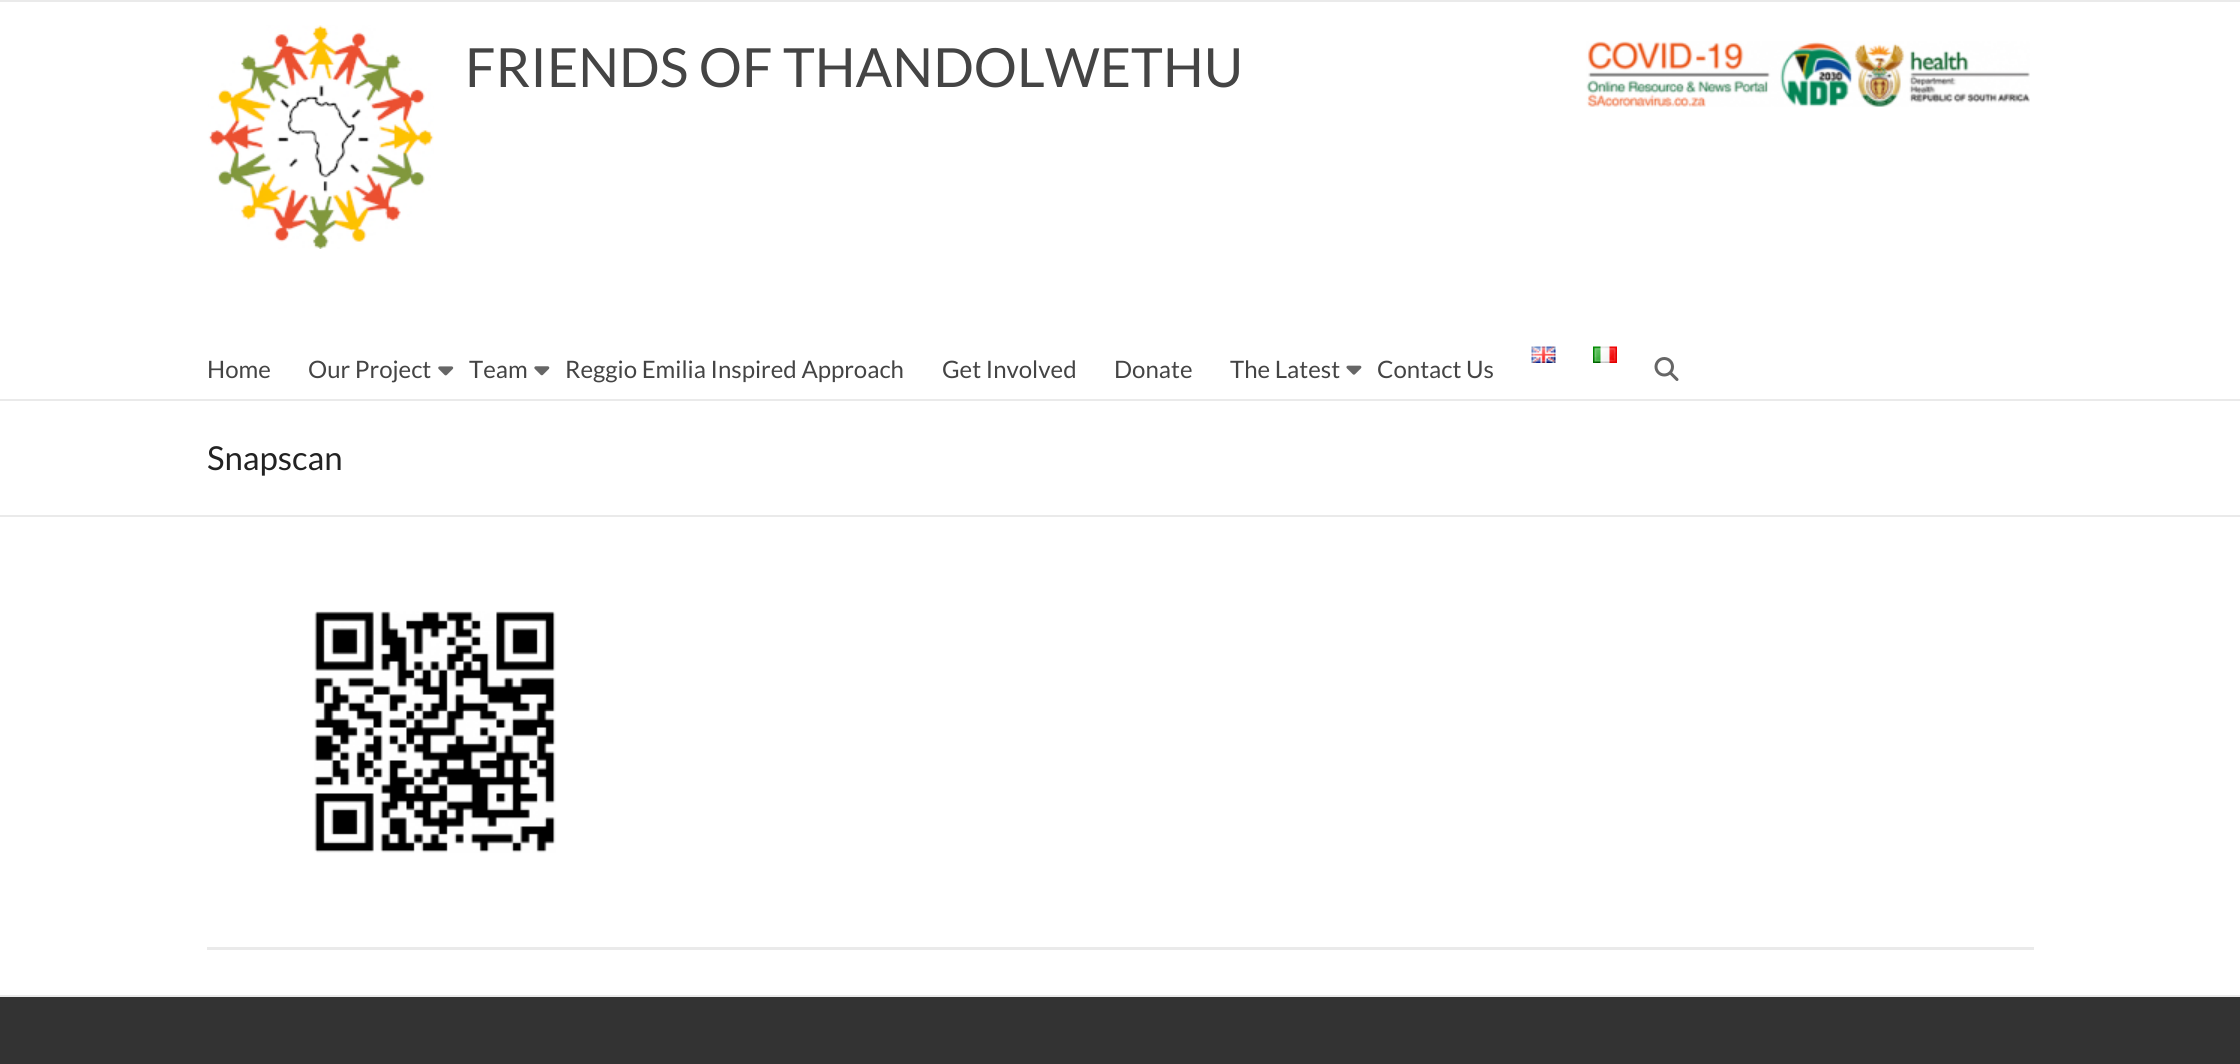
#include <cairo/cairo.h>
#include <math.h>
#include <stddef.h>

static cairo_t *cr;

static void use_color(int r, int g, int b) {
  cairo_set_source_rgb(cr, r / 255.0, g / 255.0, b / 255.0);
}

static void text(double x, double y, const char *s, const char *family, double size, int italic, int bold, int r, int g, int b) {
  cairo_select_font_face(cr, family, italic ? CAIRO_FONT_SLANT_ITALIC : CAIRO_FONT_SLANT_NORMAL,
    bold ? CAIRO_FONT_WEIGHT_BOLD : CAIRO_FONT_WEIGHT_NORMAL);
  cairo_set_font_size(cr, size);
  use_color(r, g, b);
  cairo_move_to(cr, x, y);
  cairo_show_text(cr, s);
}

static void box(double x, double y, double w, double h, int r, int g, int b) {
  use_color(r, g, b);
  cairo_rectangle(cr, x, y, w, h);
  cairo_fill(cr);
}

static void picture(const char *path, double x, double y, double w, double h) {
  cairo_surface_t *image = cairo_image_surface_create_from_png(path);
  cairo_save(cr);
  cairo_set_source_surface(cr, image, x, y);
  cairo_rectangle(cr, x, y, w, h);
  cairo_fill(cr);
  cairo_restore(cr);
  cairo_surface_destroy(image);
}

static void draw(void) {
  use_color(255, 255, 255);
  cairo_paint(cr);
  box(0, 0, 2240, 2, 234, 234, 234);
  box(0, 399, 2240, 2, 234, 234, 234);
  picture("img_01.png", 208, 25, 226, 224);
  picture("img_02.png", 1586, 41, 444, 66);
  picture("img_03.png", 1531, 346, 25, 17);
  picture("img_04.png", 1593, 346, 24, 17);
  picture("img_05.png", 438, 366, 16, 10);
  picture("img_06.png", 534, 366, 16, 10);
  picture("img_07.png", 1346, 365, 16, 10);
  picture("img_08.png", 1654, 357, 25, 24);
  box(0, 515, 2240, 2, 234, 234, 234);
  picture("img_09.png", 314, 611, 242, 242);
  box(207, 947, 1827, 3, 234, 234, 234);
  box(0, 997, 2240, 67, 51, 51, 51);
  box(0, 995, 2240, 2, 234, 234, 234);
  text(465, 87, "FRIENDS OF THANDOLWETHU", "Lato", 54, 0, 0, 68, 68, 68);
  text(207, 378, "Home", "Lato", 24, 0, 0, 68, 68, 68);
  text(308, 378, "Our Project", "Lato", 24, 0, 0, 68, 68, 68);
  text(469, 378, "Team", "Lato", 24, 0, 0, 68, 68, 68);
  text(565, 378, "Reggio Emilia Inspired Approach", "Lato", 24, 0, 0, 68, 68, 68);
  text(942, 378, "Get Involved", "Lato", 24, 0, 0, 68, 68, 68);
  text(1114, 378, "Donate", "Lato", 24, 0, 0, 68, 68, 68);
  text(1230, 378, "The Latest", "Lato", 24, 0, 0, 68, 68, 68);
  text(1377, 378, "Contact Us", "Lato", 24, 0, 0, 68, 68, 68);
  text(207, 470, "Snapscan", "Lato", 33, 0, 0, 34, 34, 34);
}

int main(void) {
  cairo_surface_t *surface = cairo_image_surface_create(CAIRO_FORMAT_RGB24, 2240, 1064);
  cr = cairo_create(surface);
  cairo_font_options_t *options = cairo_font_options_create();
  cairo_font_options_set_hint_metrics(options, CAIRO_HINT_METRICS_OFF);
  cairo_font_options_set_hint_style(options, CAIRO_HINT_STYLE_NONE);
  cairo_set_font_options(cr, options);
  cairo_set_miter_limit(cr, 4);
  draw();
  cairo_surface_write_to_png(surface, "out.png");
  cairo_font_options_destroy(options);
  cairo_destroy(cr);
  cairo_surface_destroy(surface);
  return 0;
}
